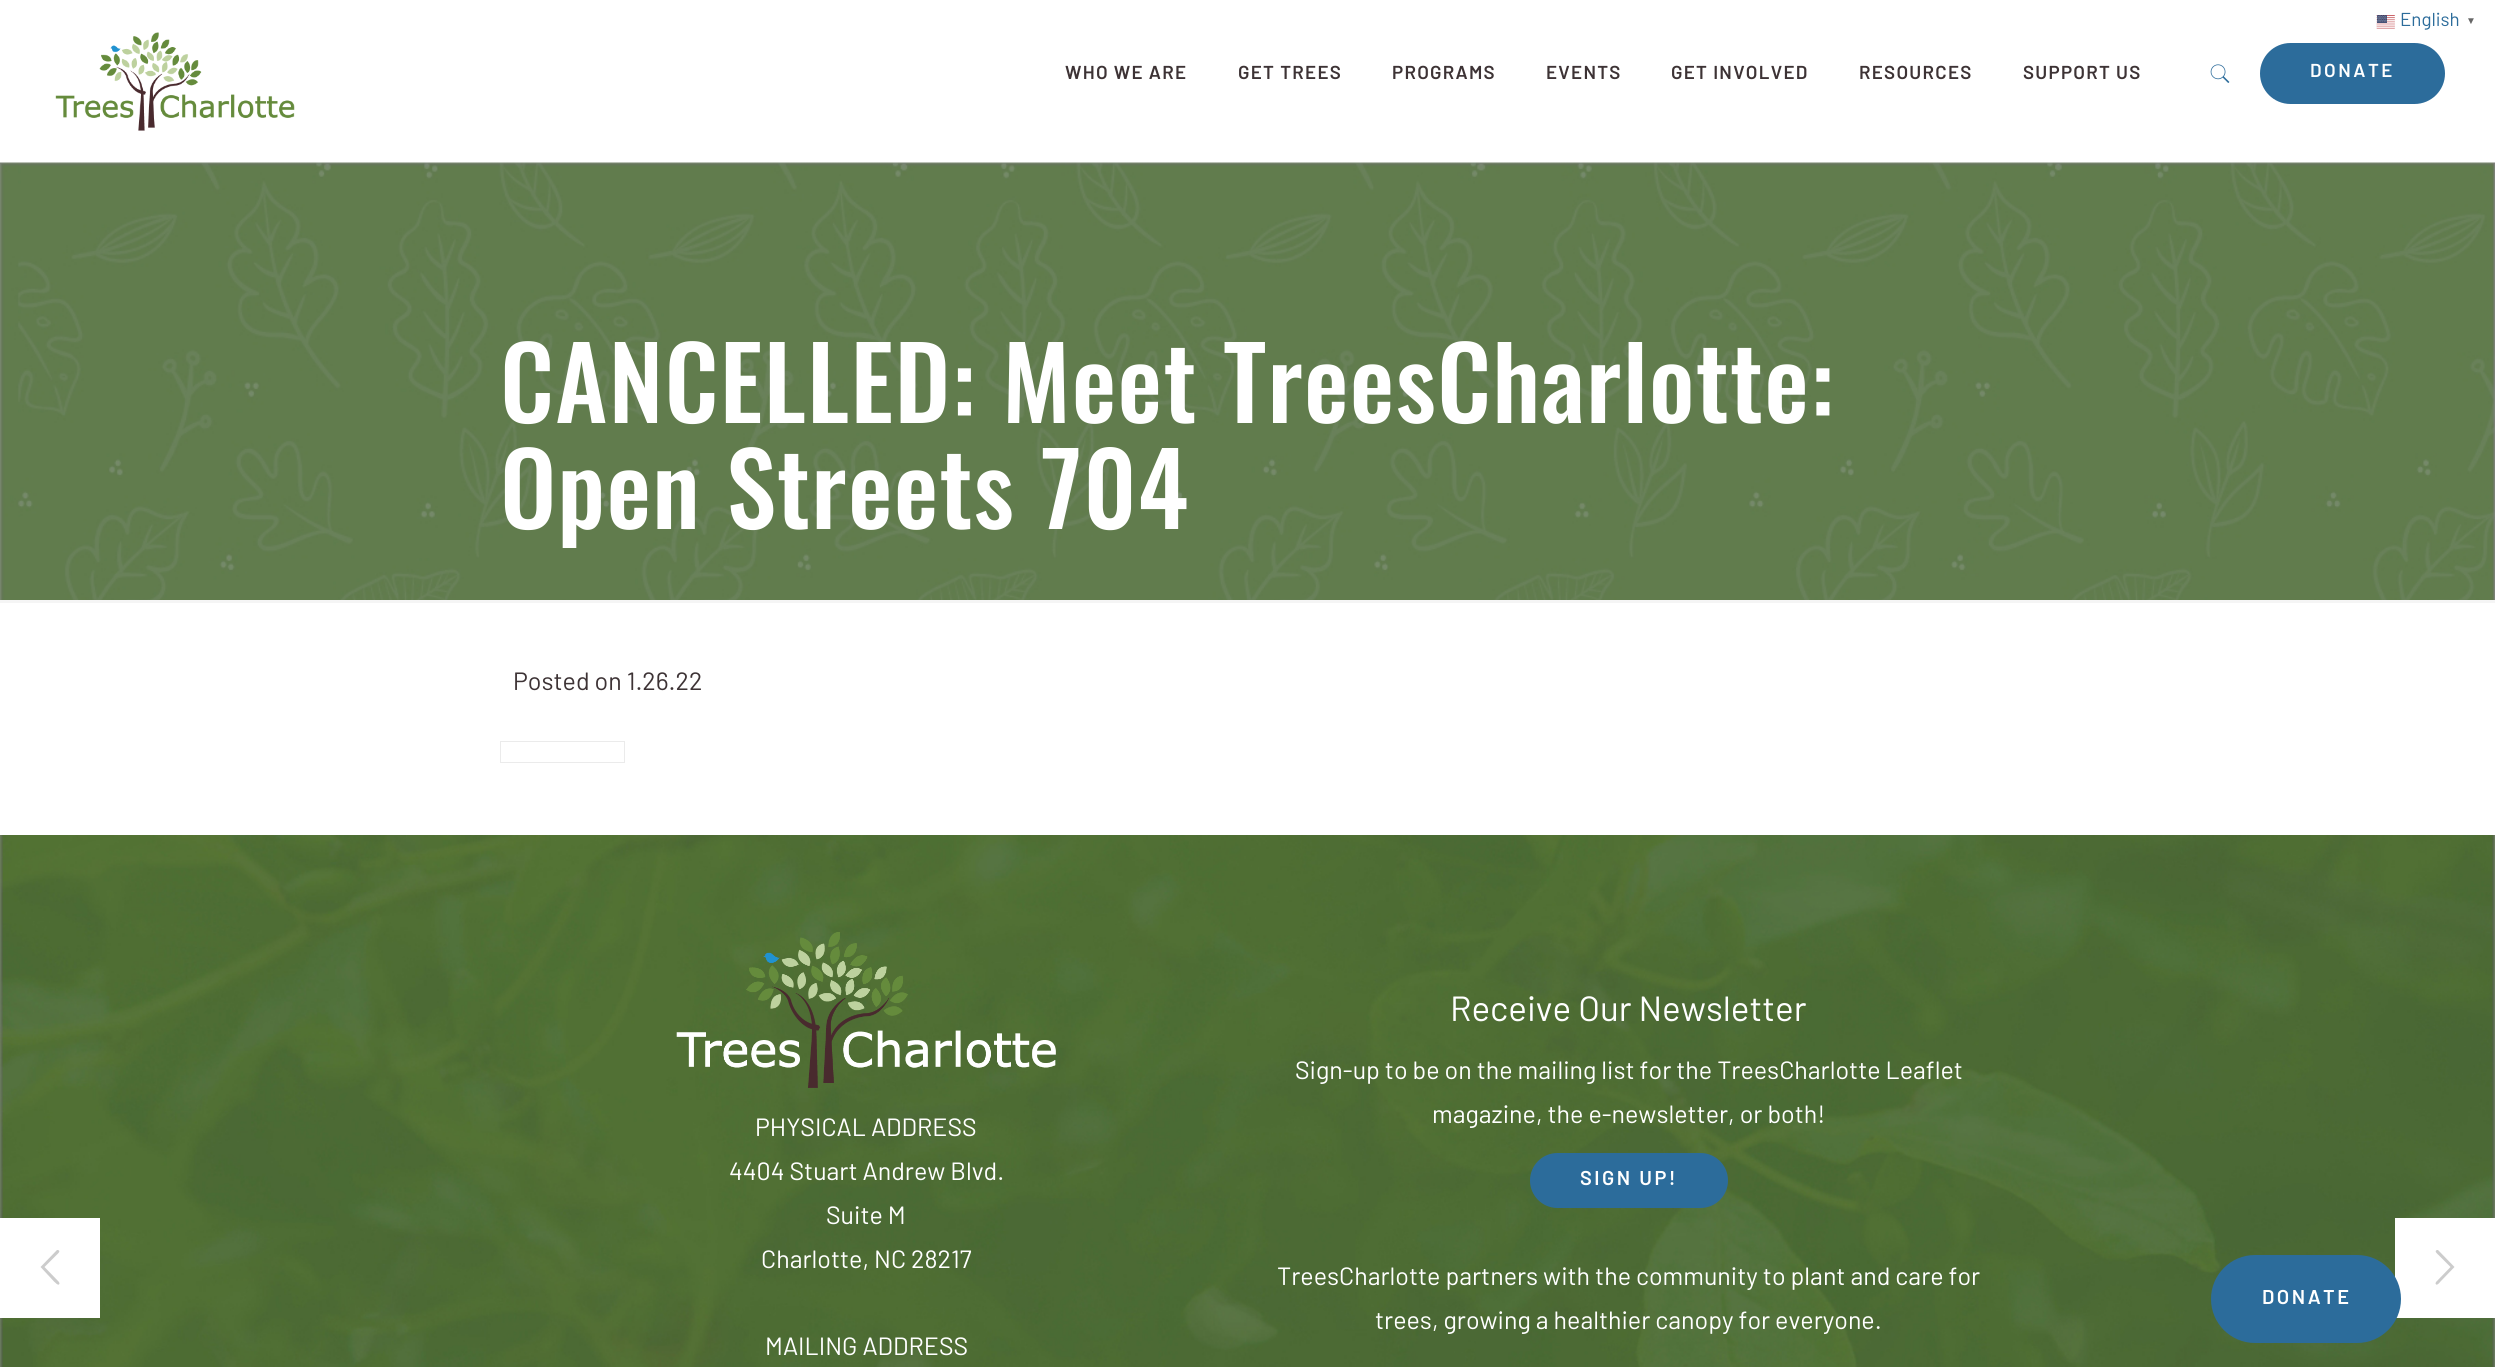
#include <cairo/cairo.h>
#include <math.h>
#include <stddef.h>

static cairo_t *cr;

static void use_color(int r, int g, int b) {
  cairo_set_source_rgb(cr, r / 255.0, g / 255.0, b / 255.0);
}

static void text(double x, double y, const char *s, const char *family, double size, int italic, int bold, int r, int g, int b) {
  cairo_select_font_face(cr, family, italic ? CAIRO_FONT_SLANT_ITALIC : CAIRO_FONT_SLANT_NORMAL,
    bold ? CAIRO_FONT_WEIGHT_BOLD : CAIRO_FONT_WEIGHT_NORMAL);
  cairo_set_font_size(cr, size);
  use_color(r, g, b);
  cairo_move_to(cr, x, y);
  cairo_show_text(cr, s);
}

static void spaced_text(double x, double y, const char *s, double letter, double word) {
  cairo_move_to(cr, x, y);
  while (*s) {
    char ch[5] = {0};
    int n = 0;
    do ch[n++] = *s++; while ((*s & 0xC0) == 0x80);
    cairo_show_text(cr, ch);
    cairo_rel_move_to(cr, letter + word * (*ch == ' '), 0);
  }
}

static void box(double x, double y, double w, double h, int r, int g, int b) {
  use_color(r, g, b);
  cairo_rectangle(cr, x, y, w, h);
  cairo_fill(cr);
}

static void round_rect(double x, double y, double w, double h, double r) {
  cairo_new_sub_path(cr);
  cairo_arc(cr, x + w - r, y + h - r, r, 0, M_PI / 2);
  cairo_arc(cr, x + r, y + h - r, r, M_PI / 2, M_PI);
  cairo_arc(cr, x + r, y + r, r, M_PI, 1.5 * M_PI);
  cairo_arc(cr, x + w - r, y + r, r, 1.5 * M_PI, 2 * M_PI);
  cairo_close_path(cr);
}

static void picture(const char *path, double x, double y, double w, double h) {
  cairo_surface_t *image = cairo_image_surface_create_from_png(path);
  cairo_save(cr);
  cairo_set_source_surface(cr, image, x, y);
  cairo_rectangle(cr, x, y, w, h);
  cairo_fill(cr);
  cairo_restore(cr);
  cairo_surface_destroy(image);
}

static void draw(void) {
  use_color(255, 255, 255);
  cairo_paint(cr);
  picture("img_05.png", 0, 835, 2495, 532);
  box(0, 1218, 100, 100, 255, 255, 255);
  use_color(204, 204, 204);
  cairo_new_path(cr);
  cairo_move_to(cr, 59, 1282);
  cairo_line_to(cr, 59.5, 1283.5);
  cairo_curve_to(cr, 58.5, 1287, 54.5, 1281.5, 54, 1281.5);
  cairo_line_to(cr, 41, 1267.5);
  cairo_line_to(cr, 40.5, 1267);
  cairo_line_to(cr, 57, 1250);
  cairo_line_to(cr, 58, 1250);
  cairo_curve_to(cr, 61.5, 1251, 57, 1254.5, 56.5, 1255);
  cairo_line_to(cr, 44.5, 1267);
  cairo_close_path(cr);
  cairo_fill(cr);
  picture("img_01.png", 2376, 15, 19, 14);
  picture("img_02.png", 55, 32, 240, 99);
  picture("img_03.png", 2210, 64, 20, 19);
  use_color(44, 108, 155);
  round_rect(2260, 43, 185, 61, 30.5);
  cairo_fill(cr);
  picture("img_04.png", 0, 162, 2495, 438);
  box(0, 600, 2495, 3, 245, 245, 245);
  cairo_rectangle(cr, 500.5, 741.5, 124, 21);
  use_color(235, 235, 235);
  cairo_set_line_width(cr, 1);
  cairo_stroke(cr);
  picture("img_06.png", 676, 932, 380, 156);
  use_color(44, 108, 155);
  round_rect(1530, 1153, 198, 55, 27.5);
  cairo_fill(cr);
  box(2395, 1218, 100, 100, 255, 255, 255);
  use_color(44, 108, 155);
  round_rect(2211, 1255, 190, 88, 44);
  cairo_fill(cr);
  use_color(204, 204, 204);
  cairo_new_path(cr);
  cairo_move_to(cr, 2436, 1282);
  cairo_line_to(cr, 2450.5, 1267);
  cairo_line_to(cr, 2438.5, 1255);
  cairo_curve_to(cr, 2438, 1254.5, 2433.5, 1251, 2437, 1250);
  cairo_line_to(cr, 2438, 1250);
  cairo_line_to(cr, 2454.5, 1267);
  cairo_line_to(cr, 2454, 1267.5);
  cairo_line_to(cr, 2440.5, 1281.5);
  cairo_curve_to(cr, 2440.5, 1281.5, 2436.5, 1287, 2435.5, 1283.5);
  cairo_close_path(cr);
  cairo_fill(cr);
  text(2400, 26, "English", "Barlow", 18.75, 0, 0, 44, 108, 155);
  text(2466, 24, "▼", "Liberation Sans", 10, 0, 1, 102, 102, 102);
  cairo_select_font_face(cr, "Barlow SemiBold", CAIRO_FONT_SLANT_NORMAL, CAIRO_FONT_WEIGHT_NORMAL);
  cairo_set_font_size(cr, 18.75);
  use_color(61, 51, 53);
  spaced_text(1065, 79, "WHO WE ARE", 1.25, 0);
  spaced_text(1238, 79, "GET TREES", 1.25, 0);
  spaced_text(1392, 79, "PROGRAMS", 1.25, 0);
  spaced_text(1546, 79, "EVENTS", 1.25, 0);
  spaced_text(1671, 79, "GET INVOLVED", 1.25, 0);
  spaced_text(1859, 79, "RESOURCES", 1.25, 0);
  spaced_text(2023, 79, "SUPPORT US", 1.25, 0);
  use_color(255, 255, 255);
  spaced_text(2310, 77, "DONATE", 2.5, 0);
  cairo_select_font_face(cr, "Oswald Medium", CAIRO_FONT_SLANT_NORMAL, CAIRO_FONT_WEIGHT_NORMAL);
  cairo_set_font_size(cr, 100);
  spaced_text(500, 423, "CANCELLED: Meet TreesCharlotte:", 1.25, 0);
  spaced_text(500, 529, "Open Streets 704", 1.25, 0);
  text(513, 690, "Posted on 1.26.22", "Barlow", 25, 0, 0, 61, 51, 53);
  text(755, 1136, "PHYSICAL ADDRESS", "Barlow", 25, 0, 0, 255, 255, 255);
  text(729, 1180, "4404 Stuart Andrew Blvd.", "Barlow", 25, 0, 0, 255, 255, 255);
  text(826, 1224, "Suite M", "Barlow", 25, 0, 0, 255, 255, 255);
  text(761, 1268, "Charlotte, NC 28217", "Barlow", 25, 0, 0, 255, 255, 255);
  text(765, 1355, "MAILING ADDRESS", "Barlow", 25, 0, 0, 255, 255, 255);
  text(1450, 1021, "Receive Our Newsletter", "Barlow", 35, 0, 0, 255, 255, 255);
  text(1295, 1079, "Sign-up to be on the mailing list for the TreesCharlotte Leaflet", "Barlow", 25, 0, 0, 255, 255, 255);
  text(1432, 1123, "magazine, the e-newsletter, or both!", "Barlow", 25, 0, 0, 255, 255, 255);
  cairo_select_font_face(cr, "Barlow SemiBold", CAIRO_FONT_SLANT_NORMAL, CAIRO_FONT_WEIGHT_NORMAL);
  cairo_set_font_size(cr, 20);
  spaced_text(1580, 1185, "SIGN UP!", 2.5, 0);
  text(1277, 1285, "TreesCharlotte partners with the community to plant and care for", "Barlow", 25, 0, 0, 255, 255, 255);
  text(1375, 1329, "trees, growing a healthier canopy for everyone.", "Barlow", 25, 0, 0, 255, 255, 255);
  cairo_select_font_face(cr, "Barlow SemiBold", CAIRO_FONT_SLANT_NORMAL, CAIRO_FONT_WEIGHT_NORMAL);
  cairo_set_font_size(cr, 20);
  spaced_text(2262, 1304, "DONATE", 2.5, 0);
}

int main(void) {
  cairo_surface_t *surface = cairo_image_surface_create(CAIRO_FORMAT_RGB24, 2495, 1367);
  cr = cairo_create(surface);
  cairo_font_options_t *options = cairo_font_options_create();
  cairo_font_options_set_hint_metrics(options, CAIRO_HINT_METRICS_OFF);
  cairo_font_options_set_hint_style(options, CAIRO_HINT_STYLE_NONE);
  cairo_set_font_options(cr, options);
  cairo_set_miter_limit(cr, 4);
  draw();
  cairo_surface_write_to_png(surface, "out.png");
  cairo_font_options_destroy(options);
  cairo_destroy(cr);
  cairo_surface_destroy(surface);
  return 0;
}
